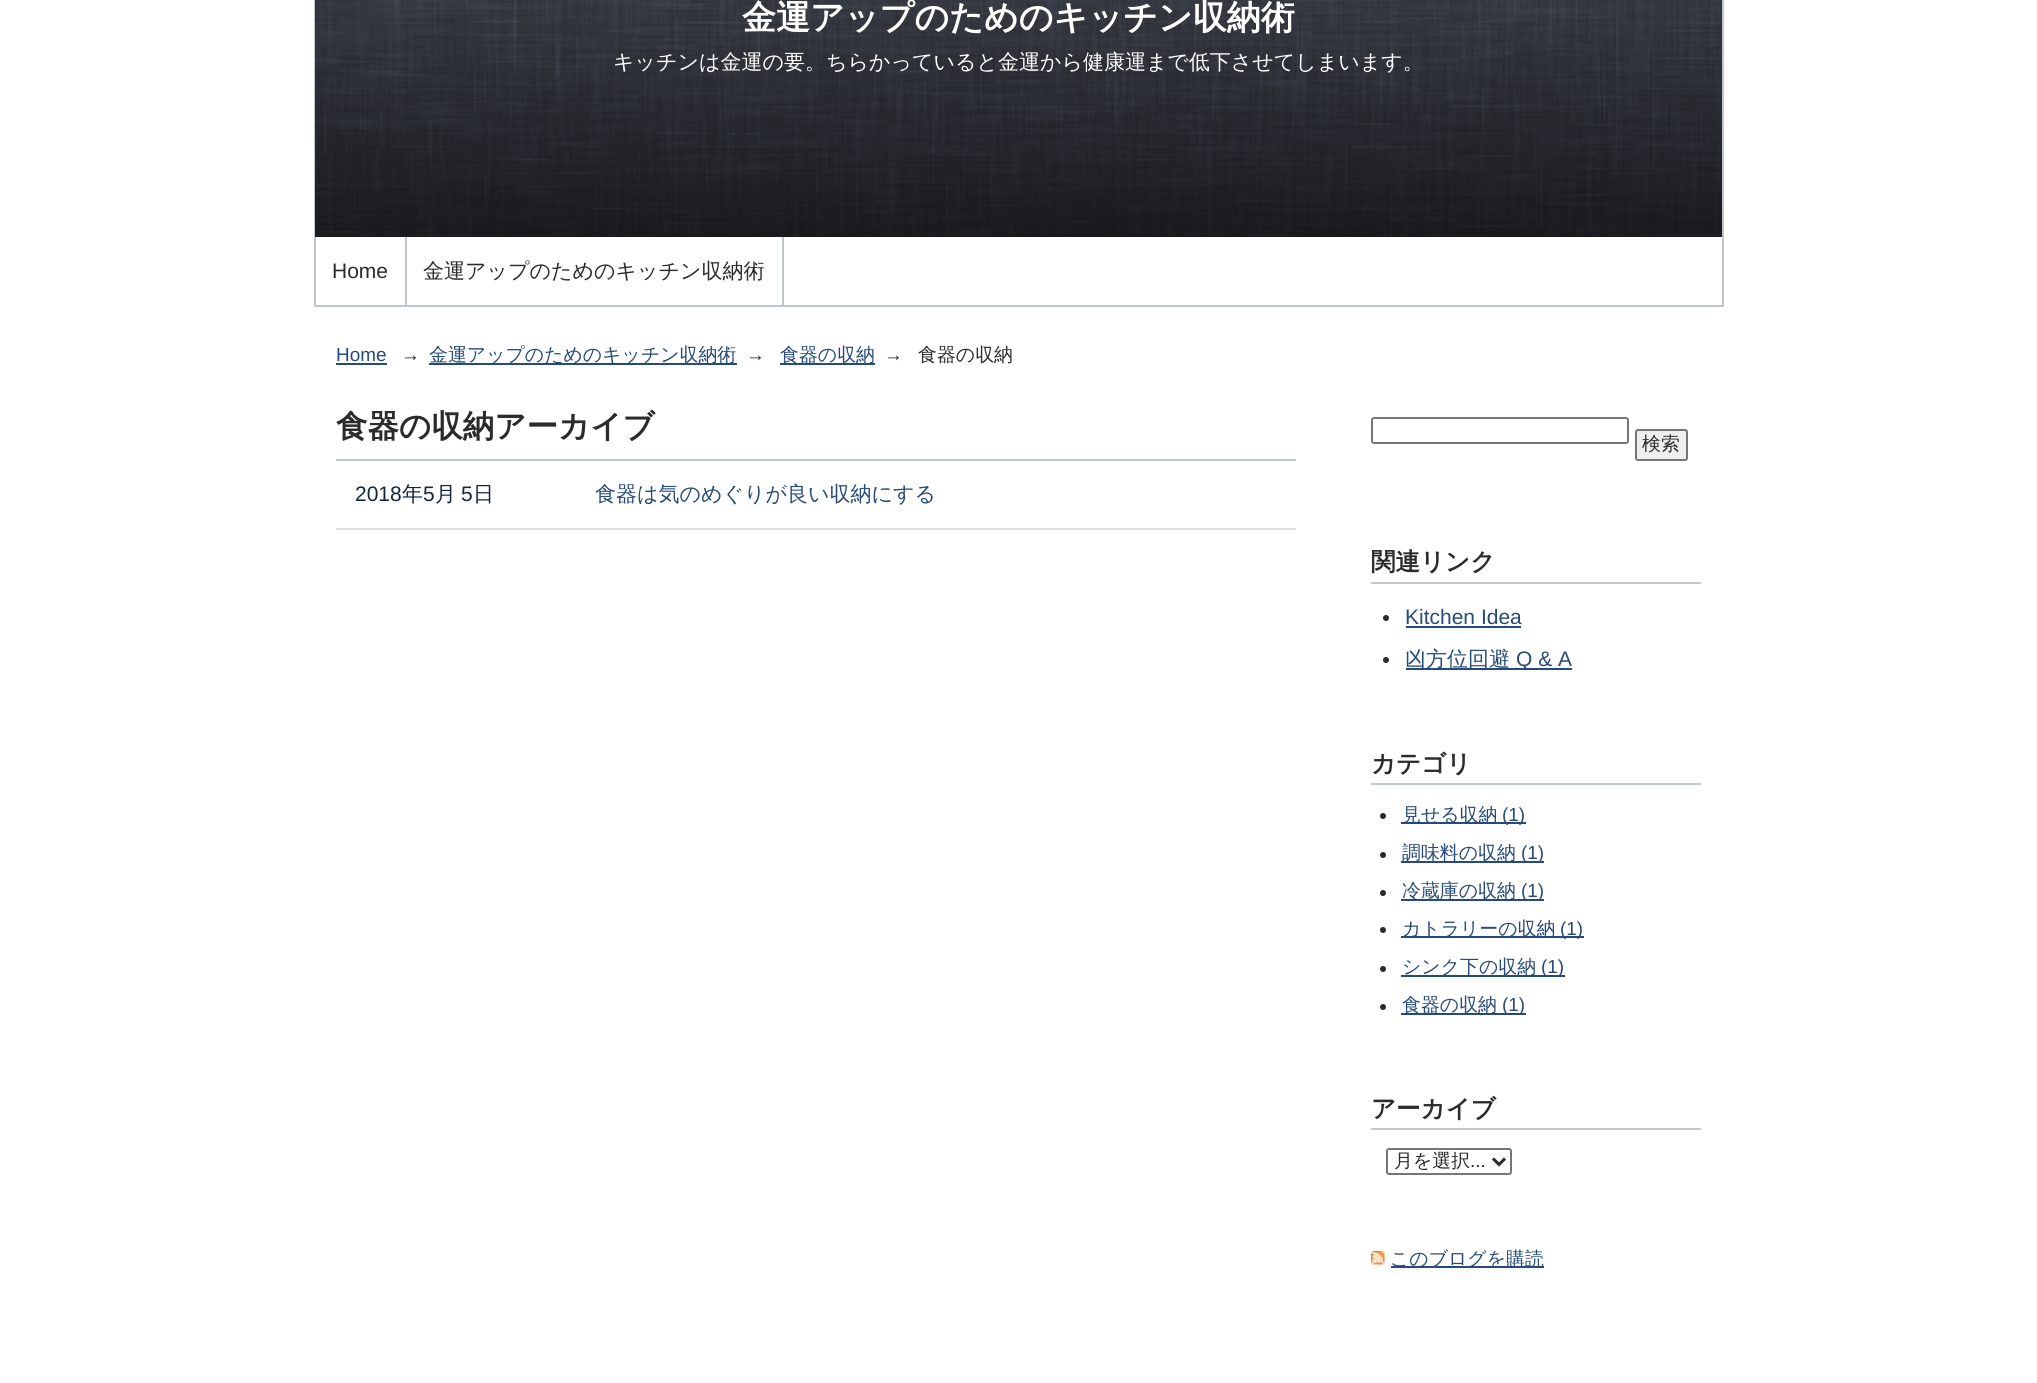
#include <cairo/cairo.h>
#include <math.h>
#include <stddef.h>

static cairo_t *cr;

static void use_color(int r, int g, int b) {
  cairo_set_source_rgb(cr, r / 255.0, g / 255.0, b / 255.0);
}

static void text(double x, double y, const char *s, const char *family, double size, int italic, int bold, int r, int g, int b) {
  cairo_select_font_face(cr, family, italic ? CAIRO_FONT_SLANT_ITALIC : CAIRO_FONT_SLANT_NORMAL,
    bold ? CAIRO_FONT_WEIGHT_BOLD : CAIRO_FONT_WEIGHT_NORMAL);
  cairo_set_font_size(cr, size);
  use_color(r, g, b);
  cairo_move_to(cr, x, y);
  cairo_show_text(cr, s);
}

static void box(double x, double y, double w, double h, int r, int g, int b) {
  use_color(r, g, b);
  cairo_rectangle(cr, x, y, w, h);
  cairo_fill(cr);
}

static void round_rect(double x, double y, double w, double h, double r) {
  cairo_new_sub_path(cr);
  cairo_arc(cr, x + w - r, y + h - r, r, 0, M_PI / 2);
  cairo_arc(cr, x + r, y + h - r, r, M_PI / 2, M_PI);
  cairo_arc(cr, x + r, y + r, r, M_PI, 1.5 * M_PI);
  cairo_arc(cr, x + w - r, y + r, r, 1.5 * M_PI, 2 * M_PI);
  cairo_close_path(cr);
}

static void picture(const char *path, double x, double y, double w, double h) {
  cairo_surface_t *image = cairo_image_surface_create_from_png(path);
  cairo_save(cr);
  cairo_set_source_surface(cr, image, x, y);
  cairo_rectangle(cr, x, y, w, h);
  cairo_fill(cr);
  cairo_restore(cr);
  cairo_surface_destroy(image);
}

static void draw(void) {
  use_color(255, 255, 255);
  cairo_paint(cr);
  box(1722, 0, 2, 306, 192, 198, 201);
  box(314, 305, 1410, 2, 192, 198, 201);
  box(314, 0, 2, 306, 192, 198, 201);
  picture("img_01.png", 315, 0, 1407, 237);
  box(405, 237, 2, 68, 192, 198, 201);
  box(782, 237, 2, 68, 192, 198, 201);
  box(336, 363, 51, 2, 39, 74, 120);
  box(429, 363, 308, 2, 39, 74, 120);
  box(780, 363, 95, 2, 39, 74, 120);
  box(336, 459, 960, 2, 192, 198, 201);
  box(336, 528, 960, 2, 220, 221, 221);
  round_rect(1372, 418, 256, 25, 2);
  use_color(118, 118, 118);
  cairo_stroke(cr);
  use_color(239, 239, 239);
  round_rect(1636, 430, 51, 30, 2);
  cairo_fill_preserve(cr);
  use_color(118, 118, 118);
  cairo_stroke(cr);
  box(1371, 582, 330, 2, 192, 198, 201);
  use_color(43, 43, 43);
  cairo_arc(cr, 1386, 618, 3, 0, 2 * M_PI);
  cairo_fill(cr);
  box(1406, 626, 115, 2, 39, 74, 120);
  use_color(43, 43, 43);
  cairo_arc(cr, 1386, 660, 3, 0, 2 * M_PI);
  cairo_fill(cr);
  box(1406, 668, 166, 2, 39, 74, 120);
  box(1371, 783, 330, 2, 192, 198, 201);
  use_color(43, 43, 43);
  cairo_arc(cr, 1383, 816, 3, 0, 2 * M_PI);
  cairo_fill(cr);
  box(1401, 822, 125, 2, 39, 74, 120);
  use_color(43, 43, 43);
  cairo_arc(cr, 1383, 855, 3, 0, 2 * M_PI);
  cairo_fill(cr);
  box(1401, 861, 143, 2, 39, 74, 120);
  use_color(43, 43, 43);
  cairo_arc(cr, 1383, 893, 3, 0, 2 * M_PI);
  cairo_fill(cr);
  box(1401, 899, 143, 2, 39, 74, 120);
  use_color(43, 43, 43);
  cairo_arc(cr, 1383, 930, 3, 0, 2 * M_PI);
  cairo_fill(cr);
  box(1401, 936, 183, 2, 39, 74, 120);
  use_color(43, 43, 43);
  cairo_arc(cr, 1383, 969, 3, 0, 2 * M_PI);
  cairo_fill(cr);
  box(1401, 975, 164, 2, 39, 74, 120);
  use_color(43, 43, 43);
  cairo_arc(cr, 1383, 1007, 3, 0, 2 * M_PI);
  cairo_fill(cr);
  box(1401, 1013, 125, 2, 39, 74, 120);
  box(1371, 1128, 330, 2, 192, 198, 201);
  round_rect(1387, 1149, 124, 25, 2);
  use_color(118, 118, 118);
  cairo_stroke(cr);
  cairo_new_path(cr);
  cairo_move_to(cr, 1493, 1158.5);
  cairo_line_to(cr, 1499, 1164.5);
  cairo_line_to(cr, 1505, 1158.5);
  use_color(43, 43, 43);
  cairo_set_line_width(cr, 3);
  cairo_stroke(cr);
  picture("img_02.png", 1371, 1251, 14, 14);
  box(1391, 1266, 153, 2, 39, 74, 120);
  text(742, 29, "金運アップのためのキッチン収納術", "WenQuanYi Zen Hei", 34, 0, 1, 255, 255, 255);
  text(613, 69, "キッチンは金運の要。ちらかっていると金運から健康運まで低下させてしまいます。", "WenQuanYi Zen Hei Medium", 21, 0, 0, 255, 255, 255);
  text(332, 278, "Home", "Liberation Sans", 21, 0, 0, 43, 43, 43);
  text(423, 278, "金運アップのためのキッチン収納術", "WenQuanYi Zen Hei Medium", 21, 0, 0, 43, 43, 43);
  text(336, 361, "Home", "Liberation Sans", 18.9, 0, 0, 39, 74, 120);
  text(401, 361, "→", "Liberation Sans", 18.9, 0, 0, 43, 43, 43);
  text(429, 361, "金運アップのためのキッチン収納術", "WenQuanYi Zen Hei Medium", 18.9, 0, 0, 39, 74, 120);
  text(746, 361, "→", "Liberation Sans", 18.9, 0, 0, 43, 43, 43);
  text(780, 361, "食器の収納", "WenQuanYi Zen Hei Medium", 18.9, 0, 0, 39, 74, 120);
  text(884, 361, "→", "Liberation Sans", 18.9, 0, 0, 43, 43, 43);
  text(918, 361, "食器の収納", "WenQuanYi Zen Hei Medium", 18.9, 0, 0, 43, 43, 43);
  text(336, 437, "食器の収納アーカイブ", "WenQuanYi Zen Hei", 31.5, 0, 1, 43, 43, 43);
  text(355, 501, "2018", "Liberation Sans", 21, 0, 0, 20, 38, 62);
  text(402, 501, "年", "WenQuanYi Zen Hei Medium", 21, 0, 0, 20, 38, 62);
  text(423, 501, "5", "Liberation Sans", 21, 0, 0, 20, 38, 62);
  text(435, 501, "月", "WenQuanYi Zen Hei Medium", 21, 0, 0, 20, 38, 62);
  text(461, 501, "5", "Liberation Sans", 21, 0, 0, 20, 38, 62);
  text(473, 501, "日", "WenQuanYi Zen Hei Medium", 21, 0, 0, 20, 38, 62);
  text(595, 501, "食器は気のめぐりが良い収納にする", "WenQuanYi Zen Hei Medium", 21, 0, 0, 39, 74, 120);
  text(1642, 450, "検索", "WenQuanYi Zen Hei Medium", 18.9, 0, 0, 43, 43, 43);
  text(1371, 570, "関連リンク", "WenQuanYi Zen Hei", 24.5, 0, 1, 43, 43, 43);
  text(1405, 624, "Kitchen Idea", "Liberation Sans", 21, 0, 0, 39, 74, 120);
  text(1405, 666, "凶方位回避", "WenQuanYi Zen Hei Medium", 21, 0, 0, 39, 74, 120);
  text(1516, 666, "Q & A", "Liberation Sans", 21, 0, 0, 39, 74, 120);
  text(1371, 772, "カテゴリ", "WenQuanYi Zen Hei", 24.5, 0, 1, 43, 43, 43);
  text(1402, 821, "見せる収納", "WenQuanYi Zen Hei Medium", 18.9, 0, 0, 39, 74, 120);
  text(1502, 821, "(1)", "Liberation Sans", 18.9, 0, 0, 39, 74, 120);
  text(1402, 859, "調味料の収納", "WenQuanYi Zen Hei Medium", 18.9, 0, 0, 39, 74, 120);
  text(1521, 859, "(1)", "Liberation Sans", 18.9, 0, 0, 39, 74, 120);
  text(1402, 897, "冷蔵庫の収納", "WenQuanYi Zen Hei Medium", 18.9, 0, 0, 39, 74, 120);
  text(1521, 897, "(1)", "Liberation Sans", 18.9, 0, 0, 39, 74, 120);
  text(1402, 935, "カトラリーの収納", "WenQuanYi Zen Hei Medium", 18.9, 0, 0, 39, 74, 120);
  text(1560, 935, "(1)", "Liberation Sans", 18.9, 0, 0, 39, 74, 120);
  text(1402, 973, "シンク下の収納", "WenQuanYi Zen Hei Medium", 18.9, 0, 0, 39, 74, 120);
  text(1541, 973, "(1)", "Liberation Sans", 18.9, 0, 0, 39, 74, 120);
  text(1402, 1011, "食器の収納", "WenQuanYi Zen Hei Medium", 18.9, 0, 0, 39, 74, 120);
  text(1502, 1011, "(1)", "Liberation Sans", 18.9, 0, 0, 39, 74, 120);
  text(1371, 1117, "アーカイブ", "WenQuanYi Zen Hei", 24.5, 0, 1, 43, 43, 43);
  text(1394, 1167, "月を選択", "WenQuanYi Zen Hei Medium", 18.9, 0, 0, 43, 43, 43);
  text(1470, 1167, "...", "Liberation Sans", 18.9, 0, 0, 43, 43, 43);
  text(1390, 1265, "このブログを購読", "WenQuanYi Zen Hei Medium", 18.9, 0, 0, 39, 74, 120);
}

int main(void) {
  cairo_surface_t *surface = cairo_image_surface_create(CAIRO_FORMAT_RGB24, 2037, 1383);
  cr = cairo_create(surface);
  cairo_font_options_t *options = cairo_font_options_create();
  cairo_font_options_set_hint_metrics(options, CAIRO_HINT_METRICS_OFF);
  cairo_font_options_set_hint_style(options, CAIRO_HINT_STYLE_NONE);
  cairo_set_font_options(cr, options);
  cairo_set_miter_limit(cr, 4);
  draw();
  cairo_surface_write_to_png(surface, "out.png");
  cairo_font_options_destroy(options);
  cairo_destroy(cr);
  cairo_surface_destroy(surface);
  return 0;
}
